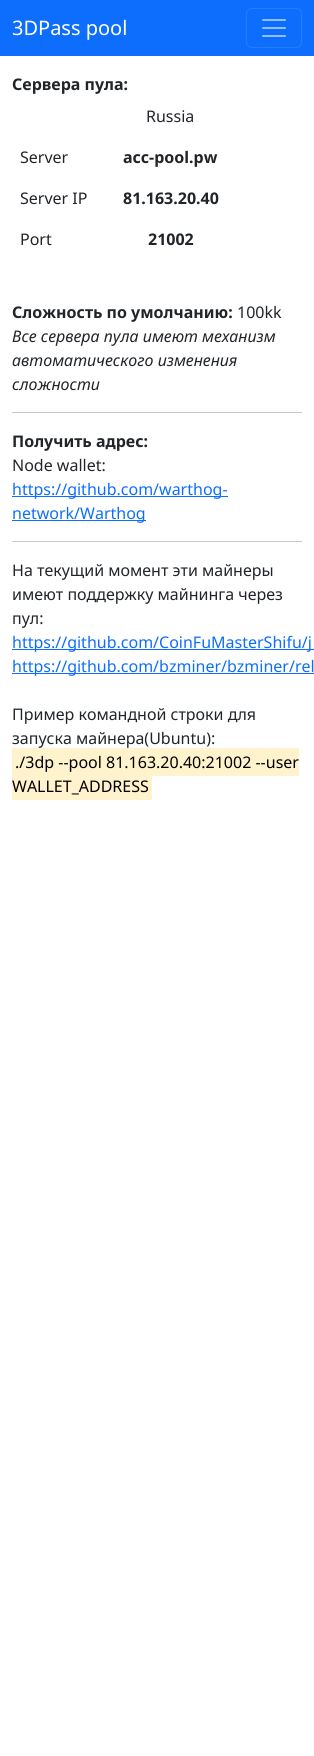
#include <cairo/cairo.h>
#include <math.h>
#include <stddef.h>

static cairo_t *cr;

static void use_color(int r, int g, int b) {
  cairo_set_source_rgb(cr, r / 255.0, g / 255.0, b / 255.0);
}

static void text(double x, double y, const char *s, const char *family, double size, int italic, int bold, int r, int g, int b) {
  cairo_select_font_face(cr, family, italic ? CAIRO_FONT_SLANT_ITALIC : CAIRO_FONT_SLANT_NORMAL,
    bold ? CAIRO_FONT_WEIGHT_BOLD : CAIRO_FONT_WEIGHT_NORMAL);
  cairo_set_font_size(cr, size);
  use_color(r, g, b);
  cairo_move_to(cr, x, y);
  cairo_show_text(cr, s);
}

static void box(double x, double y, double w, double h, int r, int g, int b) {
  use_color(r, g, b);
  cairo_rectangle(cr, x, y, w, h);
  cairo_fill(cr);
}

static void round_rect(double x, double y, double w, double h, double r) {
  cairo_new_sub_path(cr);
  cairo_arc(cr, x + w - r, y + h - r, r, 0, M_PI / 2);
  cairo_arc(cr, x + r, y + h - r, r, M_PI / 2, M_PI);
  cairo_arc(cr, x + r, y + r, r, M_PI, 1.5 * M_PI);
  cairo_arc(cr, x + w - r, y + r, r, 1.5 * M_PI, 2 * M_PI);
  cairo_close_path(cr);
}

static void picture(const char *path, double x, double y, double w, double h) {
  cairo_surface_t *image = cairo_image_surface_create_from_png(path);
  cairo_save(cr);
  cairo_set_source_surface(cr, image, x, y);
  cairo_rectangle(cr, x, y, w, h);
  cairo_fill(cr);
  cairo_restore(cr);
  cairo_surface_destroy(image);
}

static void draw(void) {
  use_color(255, 255, 255);
  cairo_paint(cr);
  box(0, 0, 314, 56, 13, 110, 253);
  round_rect(246.5, 8.5, 55, 39, 5.5);
  use_color(37, 125, 253);
  cairo_set_line_width(cr, 1);
  cairo_stroke(cr);
  picture("img_01.png", 262, 19, 24, 18);
  box(12, 412, 290, 1, 200, 201, 202);
  box(12, 496, 216, 1, 13, 110, 253);
  box(12, 520, 134, 1, 13, 110, 253);
  box(12, 541, 290, 1, 200, 201, 202);
  box(12, 649, 302, 1, 13, 110, 253);
  box(12, 673, 302, 1, 13, 110, 253);
  box(12, 748, 287, 28, 255, 243, 205);
  box(12, 776, 140, 24, 255, 243, 205);
  text(12, 35, "3DPass pool", "Noto Sans", 20, 0, 0, 255, 255, 255);
  text(12, 90, "Сервера пула:", "Noto Sans", 16, 0, 1, 33, 37, 41);
  text(146, 122, "Russia", "Noto Sans", 16, 0, 0, 33, 37, 41);
  text(20, 163, "Server", "Noto Sans", 16, 0, 0, 33, 37, 41);
  text(123, 163, "acc-pool.pw", "Noto Sans", 16, 0, 1, 33, 37, 41);
  text(20, 204, "Server IP", "Noto Sans", 16, 0, 0, 33, 37, 41);
  text(123, 204, "81.163.20.40", "Noto Sans", 16, 0, 1, 33, 37, 41);
  text(20, 245, "Port", "Noto Sans", 16, 0, 0, 33, 37, 41);
  text(148, 245, "21002", "Noto Sans", 16, 0, 1, 33, 37, 41);
  text(12, 318, "Сложность по умолчанию:", "Noto Sans", 16, 0, 1, 33, 37, 41);
  text(237, 318, "100kk", "Noto Sans", 16, 0, 0, 33, 37, 41);
  text(12, 342, "Все сервера пула имеют механизм", "Noto Sans", 16, 1, 0, 33, 37, 41);
  text(12, 366, "автоматического изменения", "Noto Sans", 16, 1, 0, 33, 37, 41);
  text(12, 390, "сложности", "Noto Sans", 16, 1, 0, 33, 37, 41);
  text(12, 447, "Получить адрес:", "Noto Sans", 16, 0, 1, 33, 37, 41);
  text(12, 471, "Node wallet:", "Noto Sans", 16, 0, 0, 33, 37, 41);
  text(12, 495, "https://github.com/warthog-", "Noto Sans", 16, 0, 0, 13, 110, 253);
  text(12, 519, "network/Warthog", "Noto Sans", 16, 0, 0, 13, 110, 253);
  text(12, 576, "На текущий момент эти майнеры", "Noto Sans", 16, 0, 0, 33, 37, 41);
  text(12, 600, "имеют поддержку майнинга через", "Noto Sans", 16, 0, 0, 33, 37, 41);
  text(12, 624, "пул:", "Noto Sans", 16, 0, 0, 33, 37, 41);
  text(12, 648, "https://github.com/CoinFuMasterShifu/j", "Noto Sans", 16, 0, 0, 13, 110, 253);
  text(12, 672, "https://github.com/bzminer/bzminer/rel", "Noto Sans", 16, 0, 0, 13, 110, 253);
  text(12, 720, "Пример командной строки для", "Noto Sans", 16, 0, 0, 33, 37, 41);
  text(12, 744, "запуска майнера(Ubuntu):", "Noto Sans", 16, 0, 0, 33, 37, 41);
  text(15, 768, "./3dp --pool 81.163.20.40:21002 --user", "Noto Sans", 16, 0, 0, 0, 0, 0);
  text(12, 792, "WALLET_ADDRESS", "Noto Sans", 16, 0, 0, 0, 0, 0);
}

int main(void) {
  cairo_surface_t *surface = cairo_image_surface_create(CAIRO_FORMAT_RGB24, 314, 1756);
  cr = cairo_create(surface);
  cairo_font_options_t *options = cairo_font_options_create();
  cairo_font_options_set_hint_metrics(options, CAIRO_HINT_METRICS_OFF);
  cairo_font_options_set_hint_style(options, CAIRO_HINT_STYLE_NONE);
  cairo_set_font_options(cr, options);
  cairo_set_miter_limit(cr, 4);
  draw();
  cairo_surface_write_to_png(surface, "out.png");
  cairo_font_options_destroy(options);
  cairo_destroy(cr);
  cairo_surface_destroy(surface);
  return 0;
}
